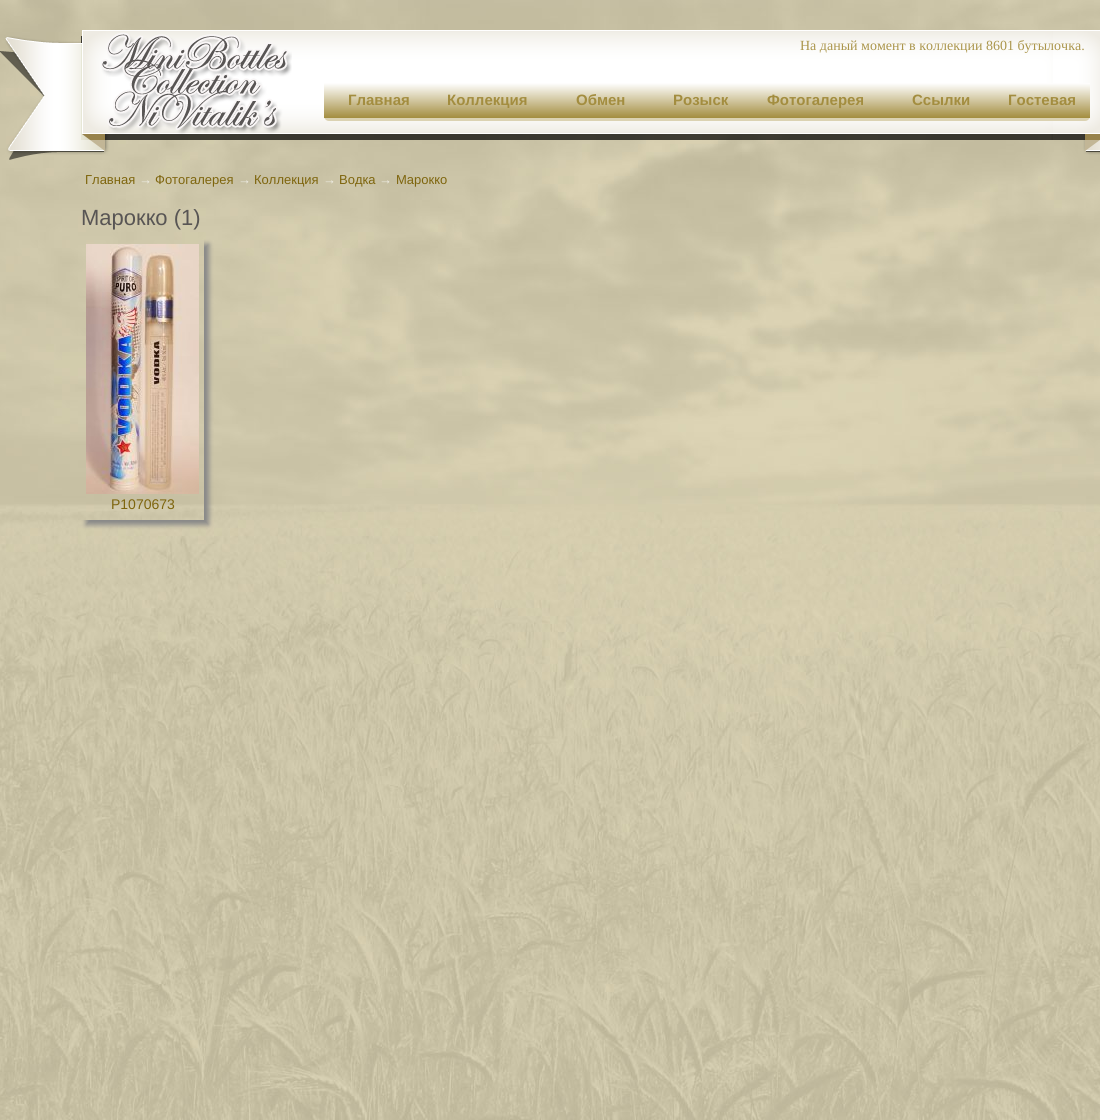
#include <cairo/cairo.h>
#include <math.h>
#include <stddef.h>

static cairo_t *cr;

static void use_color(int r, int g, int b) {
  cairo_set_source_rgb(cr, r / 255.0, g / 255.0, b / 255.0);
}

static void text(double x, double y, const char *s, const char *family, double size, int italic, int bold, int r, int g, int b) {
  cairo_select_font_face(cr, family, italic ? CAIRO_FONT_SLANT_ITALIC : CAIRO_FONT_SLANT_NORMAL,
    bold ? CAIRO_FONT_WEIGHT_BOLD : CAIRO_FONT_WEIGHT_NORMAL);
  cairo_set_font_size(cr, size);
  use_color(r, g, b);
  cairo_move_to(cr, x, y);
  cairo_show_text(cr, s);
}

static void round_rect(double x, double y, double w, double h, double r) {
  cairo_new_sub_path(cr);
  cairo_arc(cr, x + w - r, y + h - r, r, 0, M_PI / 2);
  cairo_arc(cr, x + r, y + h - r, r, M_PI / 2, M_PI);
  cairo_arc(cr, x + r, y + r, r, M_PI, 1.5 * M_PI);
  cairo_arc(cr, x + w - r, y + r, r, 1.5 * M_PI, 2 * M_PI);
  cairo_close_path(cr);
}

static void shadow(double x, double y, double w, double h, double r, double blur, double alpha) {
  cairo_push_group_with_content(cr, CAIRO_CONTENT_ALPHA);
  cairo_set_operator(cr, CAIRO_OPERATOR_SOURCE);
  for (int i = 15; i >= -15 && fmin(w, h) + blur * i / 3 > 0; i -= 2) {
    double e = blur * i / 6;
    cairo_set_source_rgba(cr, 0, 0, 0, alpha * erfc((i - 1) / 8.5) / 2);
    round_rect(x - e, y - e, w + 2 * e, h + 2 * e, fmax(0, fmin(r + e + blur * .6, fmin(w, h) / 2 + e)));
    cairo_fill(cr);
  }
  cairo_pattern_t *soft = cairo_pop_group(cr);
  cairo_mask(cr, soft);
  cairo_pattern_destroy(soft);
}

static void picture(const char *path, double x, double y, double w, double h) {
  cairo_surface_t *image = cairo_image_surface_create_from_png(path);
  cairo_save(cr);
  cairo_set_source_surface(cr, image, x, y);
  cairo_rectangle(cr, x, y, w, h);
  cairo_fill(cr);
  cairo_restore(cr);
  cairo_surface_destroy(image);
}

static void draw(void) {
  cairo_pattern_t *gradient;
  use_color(255, 255, 255);
  cairo_paint(cr);
  picture("img_01.png", 0, 0, 1100, 1120);
  picture("img_02.png", 0, 30, 1100, 130);
  picture("img_03.png", 101, 32, 191, 102);
  use_color(219, 210, 178);
  round_rect(324, 83, 766, 38, 5);
  cairo_fill(cr);
  gradient = cairo_pattern_create_linear(374, 83, 374, 118);
  cairo_pattern_add_color_stop_rgba(gradient, 0, 1, 1, 1, 1);
  cairo_pattern_add_color_stop_rgba(gradient, 1, 0.639, 0.553, 0.247, 1);
  cairo_set_source(cr, gradient);
  cairo_pattern_destroy(gradient);
  cairo_rectangle(cr, 324, 83, 99, 35);
  cairo_fill(cr);
  gradient = cairo_pattern_create_linear(488, 83, 488, 118);
  cairo_pattern_add_color_stop_rgba(gradient, 0, 1, 1, 1, 1);
  cairo_pattern_add_color_stop_rgba(gradient, 1, 0.639, 0.553, 0.247, 1);
  cairo_set_source(cr, gradient);
  cairo_pattern_destroy(gradient);
  cairo_rectangle(cr, 423, 83, 129, 35);
  cairo_fill(cr);
  gradient = cairo_pattern_create_linear(601, 83, 601, 118);
  cairo_pattern_add_color_stop_rgba(gradient, 0, 1, 1, 1, 1);
  cairo_pattern_add_color_stop_rgba(gradient, 1, 0.639, 0.553, 0.247, 1);
  cairo_set_source(cr, gradient);
  cairo_pattern_destroy(gradient);
  cairo_rectangle(cr, 552, 83, 97, 35);
  cairo_fill(cr);
  gradient = cairo_pattern_create_linear(696, 83, 696, 118);
  cairo_pattern_add_color_stop_rgba(gradient, 0, 1, 1, 1, 1);
  cairo_pattern_add_color_stop_rgba(gradient, 1, 0.639, 0.553, 0.247, 1);
  cairo_set_source(cr, gradient);
  cairo_pattern_destroy(gradient);
  cairo_rectangle(cr, 649, 83, 94, 35);
  cairo_fill(cr);
  gradient = cairo_pattern_create_linear(816, 83, 816, 118);
  cairo_pattern_add_color_stop_rgba(gradient, 0, 1, 1, 1, 1);
  cairo_pattern_add_color_stop_rgba(gradient, 1, 0.639, 0.553, 0.247, 1);
  cairo_set_source(cr, gradient);
  cairo_pattern_destroy(gradient);
  cairo_rectangle(cr, 743, 83, 145, 35);
  cairo_fill(cr);
  gradient = cairo_pattern_create_linear(936, 83, 936, 118);
  cairo_pattern_add_color_stop_rgba(gradient, 0, 1, 1, 1, 1);
  cairo_pattern_add_color_stop_rgba(gradient, 1, 0.639, 0.553, 0.247, 1);
  cairo_set_source(cr, gradient);
  cairo_pattern_destroy(gradient);
  cairo_rectangle(cr, 888, 83, 96, 35);
  cairo_fill(cr);
  gradient = cairo_pattern_create_linear(1037, 83, 1037, 118);
  cairo_pattern_add_color_stop_rgba(gradient, 0, 1, 1, 1, 1);
  cairo_pattern_add_color_stop_rgba(gradient, 1, 0.639, 0.553, 0.247, 1);
  cairo_set_source(cr, gradient);
  cairo_pattern_destroy(gradient);
  cairo_rectangle(cr, 984, 83, 106, 35);
  cairo_fill(cr);
  cairo_save(cr);
  cairo_set_fill_rule(cr, CAIRO_FILL_RULE_EVEN_ODD);
  cairo_new_path(cr);
  cairo_move_to(cr, 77, 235);
  cairo_line_to(cr, 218, 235);
  cairo_line_to(cr, 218, 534);
  cairo_line_to(cr, 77, 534);
  cairo_close_path(cr);
  cairo_move_to(cr, 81, 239);
  cairo_line_to(cr, 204, 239);
  cairo_line_to(cr, 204, 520);
  cairo_line_to(cr, 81, 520);
  cairo_close_path(cr);
  cairo_clip(cr);
  use_color(136, 136, 136);
  shadow(86, 244, 123, 281, 0, 2.5, 1);
  cairo_restore(cr);
  picture("img_04.png", 86, 244, 113, 250);
  text(800, 50, "На даный момент в коллекции 8601 бутылочка.", "Liberation Serif", 14, 0, 0, 171, 150, 76);
  text(348, 105, "Главная", "Liberation Sans", 15, 0, 1, 163, 141, 63);
  text(447, 105, "Коллекция", "Liberation Sans", 15, 0, 1, 163, 141, 63);
  text(576, 105, "Обмен", "Liberation Sans", 15, 0, 1, 163, 141, 63);
  text(673, 105, "Розыск", "Liberation Sans", 15, 0, 1, 163, 141, 63);
  text(767, 105, "Фотогалерея", "Liberation Sans", 15, 0, 1, 163, 141, 63);
  text(912, 105, "Ссылки", "Liberation Sans", 15, 0, 1, 163, 141, 63);
  text(1008, 105, "Гостевая", "Liberation Sans", 15, 0, 1, 163, 141, 63);
  text(85, 184, "Главная", "Liberation Sans", 13, 0, 0, 126, 101, 13);
  text(139, 184, "→", "Liberation Sans", 13, 0, 0, 240, 238, 231);
  text(155, 184, "Фотогалерея", "Liberation Sans", 13, 0, 0, 126, 101, 13);
  text(238, 184, "→", "Liberation Sans", 13, 0, 0, 240, 238, 231);
  text(254, 184, "Коллекция", "Liberation Sans", 13, 0, 0, 126, 101, 13);
  text(323, 184, "→", "Liberation Sans", 13, 0, 0, 240, 238, 231);
  text(339, 184, "Водка", "Liberation Sans", 13, 0, 0, 126, 101, 13);
  text(379, 184, "→", "Liberation Sans", 13, 0, 0, 240, 238, 231);
  text(396, 184, "Марокко", "Liberation Sans", 13, 0, 0, 126, 101, 13);
  text(81, 225, "Марокко (1)", "Liberation Sans", 22, 0, 0, 88, 85, 84);
  text(111, 509, "P1070673", "Liberation Sans", 14, 0, 0, 126, 101, 13);
}

int main(void) {
  cairo_surface_t *surface = cairo_image_surface_create(CAIRO_FORMAT_RGB24, 1100, 1120);
  cr = cairo_create(surface);
  cairo_font_options_t *options = cairo_font_options_create();
  cairo_font_options_set_hint_metrics(options, CAIRO_HINT_METRICS_OFF);
  cairo_font_options_set_hint_style(options, CAIRO_HINT_STYLE_NONE);
  cairo_set_font_options(cr, options);
  cairo_set_miter_limit(cr, 4);
  draw();
  cairo_surface_write_to_png(surface, "out.png");
  cairo_font_options_destroy(options);
  cairo_destroy(cr);
  cairo_surface_destroy(surface);
  return 0;
}
